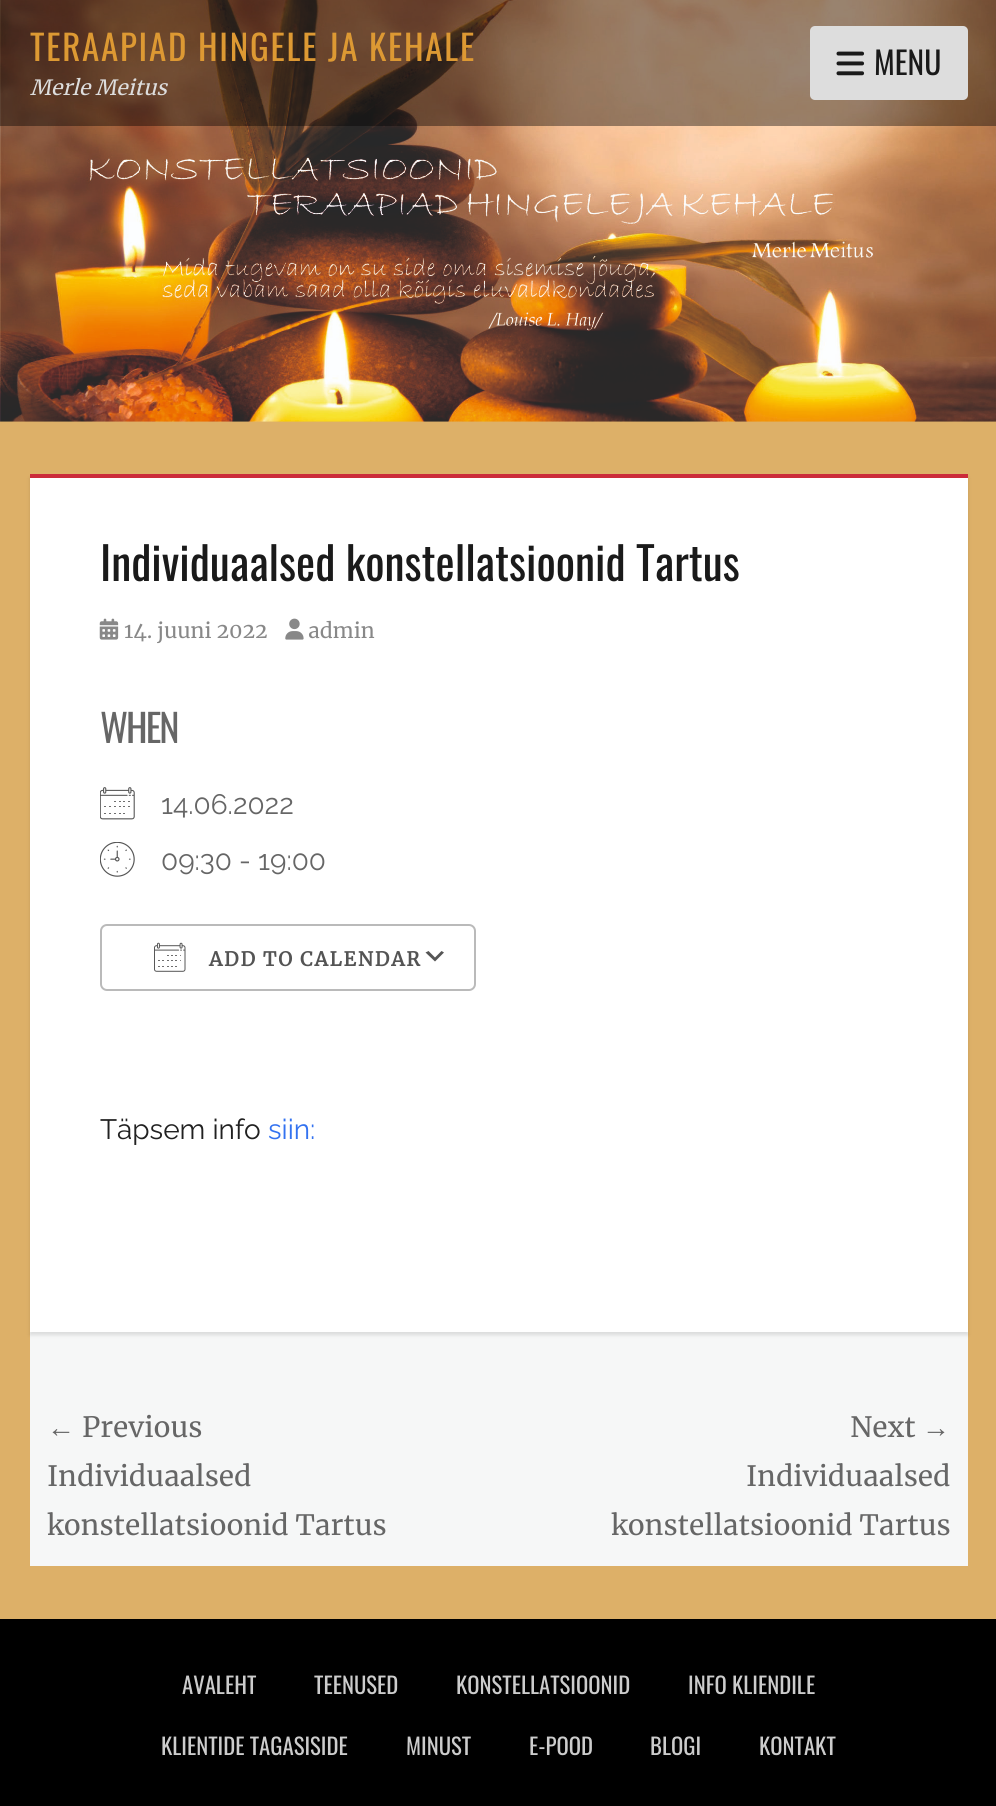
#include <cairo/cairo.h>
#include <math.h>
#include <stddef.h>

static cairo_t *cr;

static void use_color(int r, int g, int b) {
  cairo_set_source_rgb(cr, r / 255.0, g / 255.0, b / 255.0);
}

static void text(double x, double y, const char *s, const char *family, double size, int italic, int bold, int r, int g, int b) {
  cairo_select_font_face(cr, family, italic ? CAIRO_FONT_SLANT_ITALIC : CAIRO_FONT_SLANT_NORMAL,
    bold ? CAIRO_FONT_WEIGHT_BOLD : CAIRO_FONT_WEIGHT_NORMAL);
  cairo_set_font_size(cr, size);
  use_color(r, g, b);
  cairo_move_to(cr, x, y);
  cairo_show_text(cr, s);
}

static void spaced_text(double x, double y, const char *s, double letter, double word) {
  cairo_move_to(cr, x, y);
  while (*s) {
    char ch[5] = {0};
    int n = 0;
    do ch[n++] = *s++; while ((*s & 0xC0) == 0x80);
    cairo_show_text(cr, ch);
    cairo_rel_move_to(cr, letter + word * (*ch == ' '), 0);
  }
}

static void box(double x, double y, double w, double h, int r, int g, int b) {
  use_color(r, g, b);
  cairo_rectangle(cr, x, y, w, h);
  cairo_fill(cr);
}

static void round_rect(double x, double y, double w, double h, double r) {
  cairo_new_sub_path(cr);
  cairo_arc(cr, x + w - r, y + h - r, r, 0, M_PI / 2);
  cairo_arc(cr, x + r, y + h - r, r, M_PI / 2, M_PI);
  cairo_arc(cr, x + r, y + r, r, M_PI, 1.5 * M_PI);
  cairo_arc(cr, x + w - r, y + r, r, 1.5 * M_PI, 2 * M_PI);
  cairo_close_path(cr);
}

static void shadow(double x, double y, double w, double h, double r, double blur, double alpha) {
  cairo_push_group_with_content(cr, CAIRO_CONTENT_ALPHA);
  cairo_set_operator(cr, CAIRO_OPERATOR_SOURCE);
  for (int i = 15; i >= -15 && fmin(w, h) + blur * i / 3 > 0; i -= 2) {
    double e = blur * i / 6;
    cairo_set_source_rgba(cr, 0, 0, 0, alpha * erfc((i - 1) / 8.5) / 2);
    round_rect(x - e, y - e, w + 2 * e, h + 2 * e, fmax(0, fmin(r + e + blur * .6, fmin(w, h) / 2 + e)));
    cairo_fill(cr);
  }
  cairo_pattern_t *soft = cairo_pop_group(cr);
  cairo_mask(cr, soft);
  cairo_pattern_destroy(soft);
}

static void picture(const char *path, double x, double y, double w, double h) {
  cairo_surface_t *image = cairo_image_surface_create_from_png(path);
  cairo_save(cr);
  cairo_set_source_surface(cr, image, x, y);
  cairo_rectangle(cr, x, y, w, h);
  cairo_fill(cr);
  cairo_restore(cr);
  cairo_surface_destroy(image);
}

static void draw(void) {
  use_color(221, 176, 104);
  cairo_paint(cr);
  picture("img_01.png", 0, 0, 996, 422);
  cairo_set_source_rgba(cr, 0, 0, 0, 0.4);
  cairo_rectangle(cr, 0, 0, 996, 126);
  cairo_fill(cr);
  use_color(221, 221, 221);
  round_rect(810, 26, 158, 74, 5);
  cairo_fill(cr);
  picture("img_02.png", 836, 51, 29, 25);
  box(30, 1332, 938, 234, 246, 247, 247);
  use_color(0, 0, 0);
  shadow(30, 478, 938, 857, 0, 2, 0.12);
  box(30, 478, 938, 854, 255, 255, 255);
  box(30, 474, 938, 4, 204, 43, 58);
  picture("img_03.png", 99, 618, 20, 22);
  picture("img_04.png", 285, 618, 19, 22);
  picture("img_05.png", 100, 787, 35, 33);
  picture("img_06.png", 100, 842, 35, 35);
  use_color(85, 85, 85);
  cairo_new_path(cr);
  cairo_move_to(cr, 428.5, 951);
  cairo_line_to(cr, 435, 957.5);
  cairo_line_to(cr, 441.5, 951);
  cairo_line_to(cr, 444, 952.5);
  cairo_line_to(cr, 435, 961.5);
  cairo_line_to(cr, 425.5, 952.5);
  cairo_close_path(cr);
  cairo_fill(cr);
  round_rect(101, 925, 374, 65, 6);
  use_color(186, 186, 186);
  cairo_stroke(cr);
  picture("img_07.png", 154, 942, 32, 30);
  box(0, 1619, 996, 187, 0, 0, 0);
  cairo_select_font_face(cr, "Oswald", CAIRO_FONT_SLANT_NORMAL, CAIRO_FONT_WEIGHT_NORMAL);
  cairo_set_font_size(cr, 35);
  use_color(221, 153, 51);
  spaced_text(30, 61, "TERAAPIAD HINGELE JA KEHALE", 1.75, 0);
  text(30, 95, "Merle Meitus", "Merriweather", 21, 1, 0, 221, 221, 221);
  text(874, 75, "MENU", "Oswald", 31.5, 0, 0, 26, 26, 26);
  text(100, 581, "Individuaalsed konstellatsioonid Tartus", "Oswald", 45.5, 0, 0, 26, 26, 26);
  text(124, 638, "14. juuni 2022", "Merriweather", 21, 0, 0, 136, 136, 136);
  text(308, 638, "admin", "Merriweather", 21, 0, 0, 136, 136, 136);
  cairo_select_font_face(cr, "Oswald", CAIRO_FONT_SLANT_NORMAL, CAIRO_FONT_WEIGHT_NORMAL);
  cairo_set_font_size(cr, 38.5);
  use_color(102, 102, 102);
  spaced_text(100, 743, "WHEN", -2, 0);
  text(161, 814, "14.06.2022", "Raleway", 28, 0, 0, 102, 102, 102);
  text(161, 870, "09:30 - 19:00", "Raleway", 28, 0, 0, 102, 102, 102);
  cairo_select_font_face(cr, "Merriweather", CAIRO_FONT_SLANT_NORMAL, CAIRO_FONT_WEIGHT_BOLD);
  cairo_set_font_size(cr, 19.25);
  use_color(84, 84, 84);
  spaced_text(209, 966, "ADD TO CALENDAR", 1.75, 0);
  text(100, 1139, "Täpsem info", "Raleway", 28, 0, 0, 33, 33, 33);
  text(268, 1139, "siin:", "Raleway", 28, 0, 0, 51, 114, 240);
  text(47, 1437, "←", "Liberation Serif", 28, 0, 0, 102, 102, 102);
  text(82, 1437, "Previous", "Merriweather", 28, 0, 0, 102, 102, 102);
  text(47, 1486, "Individuaalsed", "Merriweather", 28, 0, 0, 102, 102, 102);
  text(47, 1535, "konstellatsioonid Tartus", "Merriweather", 28, 0, 0, 102, 102, 102);
  text(850, 1437, "Next", "Merriweather", 28, 0, 0, 102, 102, 102);
  text(922, 1437, "→", "Liberation Serif", 28, 0, 0, 102, 102, 102);
  text(746, 1486, "Individuaalsed", "Merriweather", 28, 0, 0, 102, 102, 102);
  text(611, 1535, "konstellatsioonid Tartus", "Merriweather", 28, 0, 0, 102, 102, 102);
  text(182, 1694, "AVALEHT", "Oswald", 22.75, 0, 0, 204, 204, 204);
  text(314, 1694, "TEENUSED", "Oswald", 22.75, 0, 0, 204, 204, 204);
  text(456, 1694, "KONSTELLATSIOONID", "Oswald", 22.75, 0, 0, 204, 204, 204);
  text(688, 1694, "INFO KLIENDILE", "Oswald", 22.75, 0, 0, 204, 204, 204);
  text(161, 1755, "KLIENTIDE TAGASISIDE", "Oswald", 22.75, 0, 0, 204, 204, 204);
  text(406, 1755, "MINUST", "Oswald", 22.75, 0, 0, 204, 204, 204);
  text(529, 1755, "E-POOD", "Oswald", 22.75, 0, 0, 204, 204, 204);
  text(650, 1755, "BLOGI", "Oswald", 22.75, 0, 0, 204, 204, 204);
  text(759, 1755, "KONTAKT", "Oswald", 22.75, 0, 0, 204, 204, 204);
}

int main(void) {
  cairo_surface_t *surface = cairo_image_surface_create(CAIRO_FORMAT_RGB24, 996, 1806);
  cr = cairo_create(surface);
  cairo_font_options_t *options = cairo_font_options_create();
  cairo_font_options_set_hint_metrics(options, CAIRO_HINT_METRICS_OFF);
  cairo_font_options_set_hint_style(options, CAIRO_HINT_STYLE_NONE);
  cairo_set_font_options(cr, options);
  cairo_set_miter_limit(cr, 4);
  draw();
  cairo_surface_write_to_png(surface, "out.png");
  cairo_font_options_destroy(options);
  cairo_destroy(cr);
  cairo_surface_destroy(surface);
  return 0;
}
